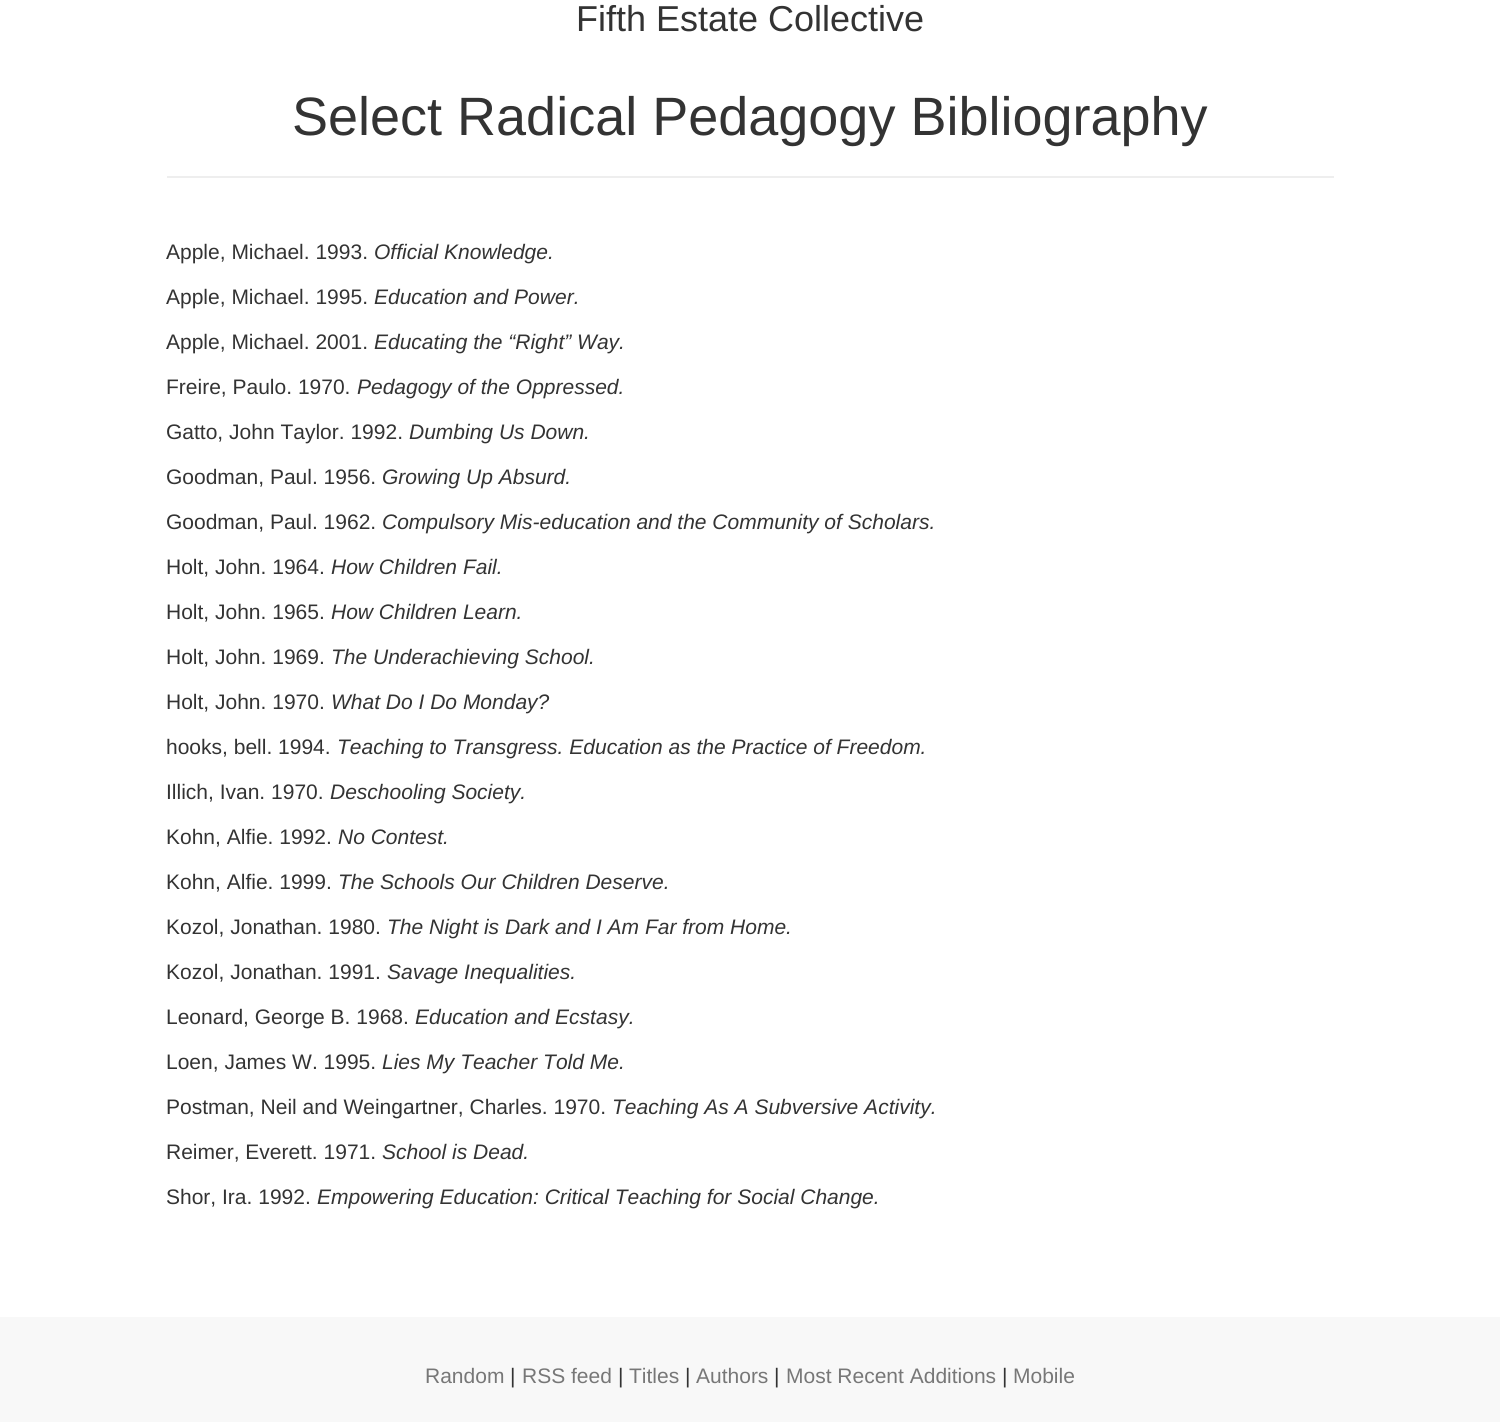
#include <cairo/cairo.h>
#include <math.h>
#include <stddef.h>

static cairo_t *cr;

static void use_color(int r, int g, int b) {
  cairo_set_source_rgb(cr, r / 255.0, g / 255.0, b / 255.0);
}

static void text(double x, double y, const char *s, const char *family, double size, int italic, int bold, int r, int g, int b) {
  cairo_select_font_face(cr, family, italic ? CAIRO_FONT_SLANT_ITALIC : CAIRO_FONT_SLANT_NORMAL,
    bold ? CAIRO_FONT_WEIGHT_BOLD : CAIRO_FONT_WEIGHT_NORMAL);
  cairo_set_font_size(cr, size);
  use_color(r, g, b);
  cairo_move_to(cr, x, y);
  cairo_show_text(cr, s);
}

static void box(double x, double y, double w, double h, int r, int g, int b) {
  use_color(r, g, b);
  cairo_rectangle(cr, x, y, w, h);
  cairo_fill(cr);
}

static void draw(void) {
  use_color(255, 255, 255);
  cairo_paint(cr);
  box(167, 176, 1167, 2, 238, 238, 238);
  box(0, 1317, 1500, 105, 248, 248, 248);
  text(576, 31, "Fifth Estate Collective", "Liberation Sans", 36, 0, 0, 51, 51, 51);
  text(292, 135, "Select Radical Pedagogy Bibliography", "Liberation Sans", 54, 0, 0, 51, 51, 51);
  text(166, 259, "Apple, Michael. 1993.", "Liberation Sans", 21, 0, 0, 51, 51, 51);
  text(374, 259, "Official Knowledge.", "Liberation Sans", 21, 1, 0, 51, 51, 51);
  text(166, 304, "Apple, Michael. 1995.", "Liberation Sans", 21, 0, 0, 51, 51, 51);
  text(374, 304, "Education and Power.", "Liberation Sans", 21, 1, 0, 51, 51, 51);
  text(166, 349, "Apple, Michael. 2001.", "Liberation Sans", 21, 0, 0, 51, 51, 51);
  text(374, 349, "Educating the “Right” Way.", "Liberation Sans", 21, 1, 0, 51, 51, 51);
  text(166, 394, "Freire, Paulo. 1970.", "Liberation Sans", 21, 0, 0, 51, 51, 51);
  text(357, 394, "Pedagogy of the Oppressed.", "Liberation Sans", 21, 1, 0, 51, 51, 51);
  text(166, 439, "Gatto, John Taylor. 1992.", "Liberation Sans", 21, 0, 0, 51, 51, 51);
  text(409, 439, "Dumbing Us Down.", "Liberation Sans", 21, 1, 0, 51, 51, 51);
  text(166, 484, "Goodman, Paul. 1956.", "Liberation Sans", 21, 0, 0, 51, 51, 51);
  text(382, 484, "Growing Up Absurd.", "Liberation Sans", 21, 1, 0, 51, 51, 51);
  text(166, 529, "Goodman, Paul. 1962.", "Liberation Sans", 21, 0, 0, 51, 51, 51);
  text(382, 529, "Compulsory Mis-education and the Community of Scholars.", "Liberation Sans", 21, 1, 0, 51, 51, 51);
  text(166, 574, "Holt, John. 1964.", "Liberation Sans", 21, 0, 0, 51, 51, 51);
  text(331, 574, "How Children Fail.", "Liberation Sans", 21, 1, 0, 51, 51, 51);
  text(166, 619, "Holt, John. 1965.", "Liberation Sans", 21, 0, 0, 51, 51, 51);
  text(331, 619, "How Children Learn.", "Liberation Sans", 21, 1, 0, 51, 51, 51);
  text(166, 664, "Holt, John. 1969.", "Liberation Sans", 21, 0, 0, 51, 51, 51);
  text(331, 664, "The Underachieving School.", "Liberation Sans", 21, 1, 0, 51, 51, 51);
  text(166, 709, "Holt, John. 1970.", "Liberation Sans", 21, 0, 0, 51, 51, 51);
  text(331, 709, "What Do I Do Monday?", "Liberation Sans", 21, 1, 0, 51, 51, 51);
  text(166, 754, "hooks, bell. 1994.", "Liberation Sans", 21, 0, 0, 51, 51, 51);
  text(337, 754, "Teaching to Transgress. Education as the Practice of Freedom.", "Liberation Sans", 21, 1, 0, 51, 51, 51);
  text(166, 799, "Illich, Ivan. 1970.", "Liberation Sans", 21, 0, 0, 51, 51, 51);
  text(330, 799, "Deschooling Society.", "Liberation Sans", 21, 1, 0, 51, 51, 51);
  text(166, 844, "Kohn, Alfie. 1992.", "Liberation Sans", 21, 0, 0, 51, 51, 51);
  text(338, 844, "No Contest.", "Liberation Sans", 21, 1, 0, 51, 51, 51);
  text(166, 889, "Kohn, Alfie. 1999.", "Liberation Sans", 21, 0, 0, 51, 51, 51);
  text(338, 889, "The Schools Our Children Deserve.", "Liberation Sans", 21, 1, 0, 51, 51, 51);
  text(166, 934, "Kozol, Jonathan. 1980.", "Liberation Sans", 21, 0, 0, 51, 51, 51);
  text(387, 934, "The Night is Dark and I Am Far from Home.", "Liberation Sans", 21, 1, 0, 51, 51, 51);
  text(166, 979, "Kozol, Jonathan. 1991.", "Liberation Sans", 21, 0, 0, 51, 51, 51);
  text(387, 979, "Savage Inequalities.", "Liberation Sans", 21, 1, 0, 51, 51, 51);
  text(166, 1024, "Leonard, George B. 1968.", "Liberation Sans", 21, 0, 0, 51, 51, 51);
  text(415, 1024, "Education and Ecstasy.", "Liberation Sans", 21, 1, 0, 51, 51, 51);
  text(166, 1069, "Loen, James W. 1995.", "Liberation Sans", 21, 0, 0, 51, 51, 51);
  text(382, 1069, "Lies My Teacher Told Me.", "Liberation Sans", 21, 1, 0, 51, 51, 51);
  text(166, 1114, "Postman, Neil and Weingartner, Charles. 1970.", "Liberation Sans", 21, 0, 0, 51, 51, 51);
  text(612, 1114, "Teaching As A Subversive Activity.", "Liberation Sans", 21, 1, 0, 51, 51, 51);
  text(166, 1159, "Reimer, Everett. 1971.", "Liberation Sans", 21, 0, 0, 51, 51, 51);
  text(382, 1159, "School is Dead.", "Liberation Sans", 21, 1, 0, 51, 51, 51);
  text(166, 1204, "Shor, Ira. 1992.", "Liberation Sans", 21, 0, 0, 51, 51, 51);
  text(317, 1204, "Empowering Education: Critical Teaching for Social Change.", "Liberation Sans", 21, 1, 0, 51, 51, 51);
  text(425, 1383, "Random", "Liberation Sans", 21, 0, 0, 119, 119, 119);
  text(510, 1383, "|", "Liberation Sans", 21, 0, 0, 51, 51, 51);
  text(522, 1383, "RSS feed", "Liberation Sans", 21, 0, 0, 119, 119, 119);
  text(618, 1383, "|", "Liberation Sans", 21, 0, 0, 51, 51, 51);
  text(629, 1383, "Titles", "Liberation Sans", 21, 0, 0, 119, 119, 119);
  text(685, 1383, "|", "Liberation Sans", 21, 0, 0, 51, 51, 51);
  text(696, 1383, "Authors", "Liberation Sans", 21, 0, 0, 119, 119, 119);
  text(774, 1383, "|", "Liberation Sans", 21, 0, 0, 51, 51, 51);
  text(786, 1383, "Most Recent Additions", "Liberation Sans", 21, 0, 0, 119, 119, 119);
  text(1002, 1383, "|", "Liberation Sans", 21, 0, 0, 51, 51, 51);
  text(1013, 1383, "Mobile", "Liberation Sans", 21, 0, 0, 119, 119, 119);
}

int main(void) {
  cairo_surface_t *surface = cairo_image_surface_create(CAIRO_FORMAT_RGB24, 1500, 1422);
  cr = cairo_create(surface);
  cairo_font_options_t *options = cairo_font_options_create();
  cairo_font_options_set_hint_metrics(options, CAIRO_HINT_METRICS_OFF);
  cairo_font_options_set_hint_style(options, CAIRO_HINT_STYLE_NONE);
  cairo_set_font_options(cr, options);
  cairo_set_miter_limit(cr, 4);
  draw();
  cairo_surface_write_to_png(surface, "out.png");
  cairo_font_options_destroy(options);
  cairo_destroy(cr);
  cairo_surface_destroy(surface);
  return 0;
}
